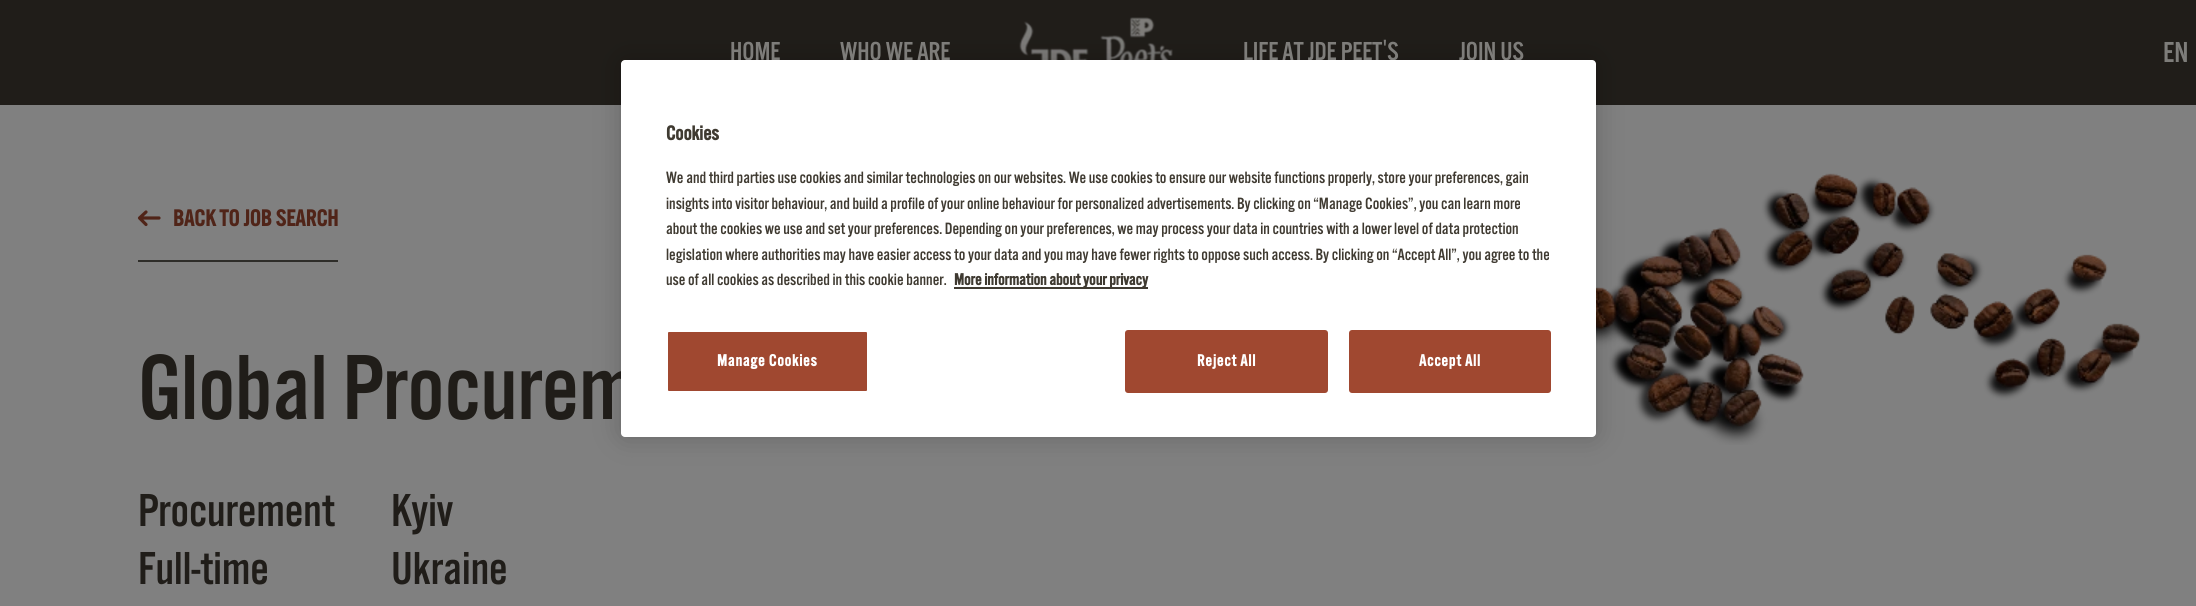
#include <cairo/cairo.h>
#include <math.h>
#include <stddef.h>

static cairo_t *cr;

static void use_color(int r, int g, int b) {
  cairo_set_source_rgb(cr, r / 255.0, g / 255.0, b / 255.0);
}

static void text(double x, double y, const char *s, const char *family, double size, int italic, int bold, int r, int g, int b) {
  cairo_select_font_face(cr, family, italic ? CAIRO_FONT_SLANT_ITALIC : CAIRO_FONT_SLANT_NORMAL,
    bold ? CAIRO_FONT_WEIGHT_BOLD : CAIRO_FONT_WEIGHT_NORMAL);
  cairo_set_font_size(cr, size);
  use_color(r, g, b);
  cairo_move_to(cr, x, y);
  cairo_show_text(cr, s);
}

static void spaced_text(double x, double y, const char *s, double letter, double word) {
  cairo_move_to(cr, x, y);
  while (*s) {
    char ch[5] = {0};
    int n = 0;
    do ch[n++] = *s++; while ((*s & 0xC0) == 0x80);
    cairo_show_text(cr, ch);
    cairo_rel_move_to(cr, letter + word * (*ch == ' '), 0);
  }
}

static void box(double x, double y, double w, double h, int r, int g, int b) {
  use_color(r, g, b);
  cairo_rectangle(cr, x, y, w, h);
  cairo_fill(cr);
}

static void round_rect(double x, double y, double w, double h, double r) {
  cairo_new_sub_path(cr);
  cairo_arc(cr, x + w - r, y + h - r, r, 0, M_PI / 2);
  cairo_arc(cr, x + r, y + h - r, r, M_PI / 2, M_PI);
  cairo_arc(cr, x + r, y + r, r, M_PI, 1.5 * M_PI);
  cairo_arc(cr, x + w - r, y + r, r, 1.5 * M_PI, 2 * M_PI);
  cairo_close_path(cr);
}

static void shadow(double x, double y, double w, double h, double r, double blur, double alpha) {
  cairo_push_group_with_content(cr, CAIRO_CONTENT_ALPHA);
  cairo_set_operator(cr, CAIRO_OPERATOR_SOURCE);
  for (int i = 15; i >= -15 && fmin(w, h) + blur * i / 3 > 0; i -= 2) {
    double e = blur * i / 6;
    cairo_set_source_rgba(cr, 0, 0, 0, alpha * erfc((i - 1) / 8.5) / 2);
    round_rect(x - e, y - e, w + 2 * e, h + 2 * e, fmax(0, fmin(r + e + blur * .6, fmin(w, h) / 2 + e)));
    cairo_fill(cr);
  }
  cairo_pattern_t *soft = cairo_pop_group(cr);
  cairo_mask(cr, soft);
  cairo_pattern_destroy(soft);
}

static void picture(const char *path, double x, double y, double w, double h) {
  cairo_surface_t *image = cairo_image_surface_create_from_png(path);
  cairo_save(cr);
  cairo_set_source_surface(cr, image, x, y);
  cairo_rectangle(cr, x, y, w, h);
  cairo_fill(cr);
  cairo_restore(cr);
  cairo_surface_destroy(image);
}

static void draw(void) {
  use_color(128, 128, 128);
  cairo_paint(cr);
  box(0, 0, 2196, 105, 32, 29, 25);
  picture("img_01.png", 1019, 17, 154, 43);
  picture("img_02.png", 1596, 173, 545, 272);
  box(138, 260, 200, 2, 46, 45, 41);
  cairo_new_path(cr);
  cairo_move_to(cr, 159, 218);
  cairo_line_to(cr, 139.5, 218);
  cairo_move_to(cr, 139.5, 218);
  cairo_line_to(cr, 146, 224.5);
  cairo_move_to(cr, 139.5, 218);
  cairo_line_to(cr, 146, 212);
  use_color(80, 36, 24);
  cairo_set_line_width(cr, 3.2);
  cairo_set_line_cap(cr, CAIRO_LINE_CAP_ROUND);
  cairo_set_line_join(cr, CAIRO_LINE_JOIN_ROUND);
  cairo_stroke(cr);
  use_color(0, 0, 0);
  shadow(621, 60, 975, 377, 4, 13.5, 0.2);
  text(730, 60, "HOME", "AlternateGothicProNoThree", 27, 0, 0, 126, 125, 122);
  text(840, 60, "WHO WE ARE", "AlternateGothicProNoThree", 27, 0, 0, 126, 125, 122);
  text(1243, 60, "LIFE AT JDE PEET'S", "AlternateGothicProNoThree", 27, 0, 0, 126, 125, 122);
  text(1459, 60, "JOIN US", "AlternateGothicProNoThree", 27, 0, 0, 126, 125, 122);
  text(2163, 62, "EN", "AlternateGothicProNoThree", 30, 0, 0, 126, 125, 122);
  cairo_select_font_face(cr, "AlternateGothicProNoThree", CAIRO_FONT_SLANT_NORMAL, CAIRO_FONT_WEIGHT_BOLD);
  cairo_set_font_size(cr, 24);
  use_color(80, 36, 24);
  spaced_text(173, 226, "BACK TO JOB SEARCH", 0.25, 0);
  text(138, 419, "Global Procurem", "AlternateGothicProNoThree", 96, 0, 0, 32, 29, 25);
  text(138, 526, "Procurement", "AlternateGothicProNoThree", 48, 0, 0, 32, 29, 25);
  text(391, 526, "Kyiv", "AlternateGothicProNoThree", 48, 0, 0, 32, 29, 25);
  text(138, 584, "Full-time", "AlternateGothicProNoThree", 48, 0, 0, 32, 29, 25);
  text(391, 584, "Ukraine", "AlternateGothicProNoThree", 48, 0, 0, 32, 29, 25);
  use_color(255, 255, 255);
  round_rect(621, 60, 975, 377, 4);
  cairo_fill(cr);
  text(666, 140, "Cookies", "AlternateGothicProNoThree", 21, 0, 1, 63, 58, 49);
  text(666, 183, "We and third parties use cookies and similar technologies on our websites. We use cookies to ensure our website functions properly, store your preferences, gain", "AlternateGothicProNoThree", 17.07, 0, 0, 63, 58, 49);
  text(666, 209, "insights into visitor behaviour, and build a profile of your online behaviour for personalized advertisements. By clicking on “Manage Cookies”, you can learn more", "AlternateGothicProNoThree", 17.07, 0, 0, 63, 58, 49);
  text(666, 234, "about the cookies we use and set your preferences. Depending on your preferences, we may process your data in countries with a lower level of data protection", "AlternateGothicProNoThree", 17.07, 0, 0, 63, 58, 49);
  text(666, 260, "legislation where authorities may have easier access to your data and you may have fewer rights to oppose such access. By clicking on “Accept All”, you agree to the", "AlternateGothicProNoThree", 17.07, 0, 0, 63, 58, 49);
  text(666, 285, "use of all cookies as described in this cookie banner.", "AlternateGothicProNoThree", 17.07, 0, 0, 63, 58, 49);
  box(954, 287, 194, 2, 63, 58, 49);
  text(954, 285, "More information about your privacy", "AlternateGothicProNoThree", 17.07, 0, 1, 63, 58, 49);
  use_color(160, 72, 48);
  round_rect(667, 331, 201, 61, 2);
  cairo_fill_preserve(cr);
  use_color(255, 255, 255);
  cairo_set_line_width(cr, 2);
  cairo_set_line_cap(cr, CAIRO_LINE_CAP_BUTT);
  cairo_set_line_join(cr, CAIRO_LINE_JOIN_MITER);
  cairo_stroke(cr);
  spaced_text(717, 366, "Manage Cookies", 0.8, 0);
  use_color(160, 72, 48);
  round_rect(1126, 331, 201, 61, 2);
  cairo_fill_preserve(cr);
  cairo_stroke(cr);
  use_color(255, 255, 255);
  spaced_text(1197, 366, "Reject All", 0.8, 0);
  use_color(160, 72, 48);
  round_rect(1350, 331, 200, 61, 2);
  cairo_fill_preserve(cr);
  cairo_stroke(cr);
  use_color(255, 255, 255);
  spaced_text(1419, 366, "Accept All", 0.8, 0);
}

int main(void) {
  cairo_surface_t *surface = cairo_image_surface_create(CAIRO_FORMAT_RGB24, 2196, 606);
  cr = cairo_create(surface);
  cairo_font_options_t *options = cairo_font_options_create();
  cairo_font_options_set_hint_metrics(options, CAIRO_HINT_METRICS_OFF);
  cairo_font_options_set_hint_style(options, CAIRO_HINT_STYLE_NONE);
  cairo_set_font_options(cr, options);
  cairo_set_miter_limit(cr, 4);
  draw();
  cairo_surface_write_to_png(surface, "out.png");
  cairo_font_options_destroy(options);
  cairo_destroy(cr);
  cairo_surface_destroy(surface);
  return 0;
}
